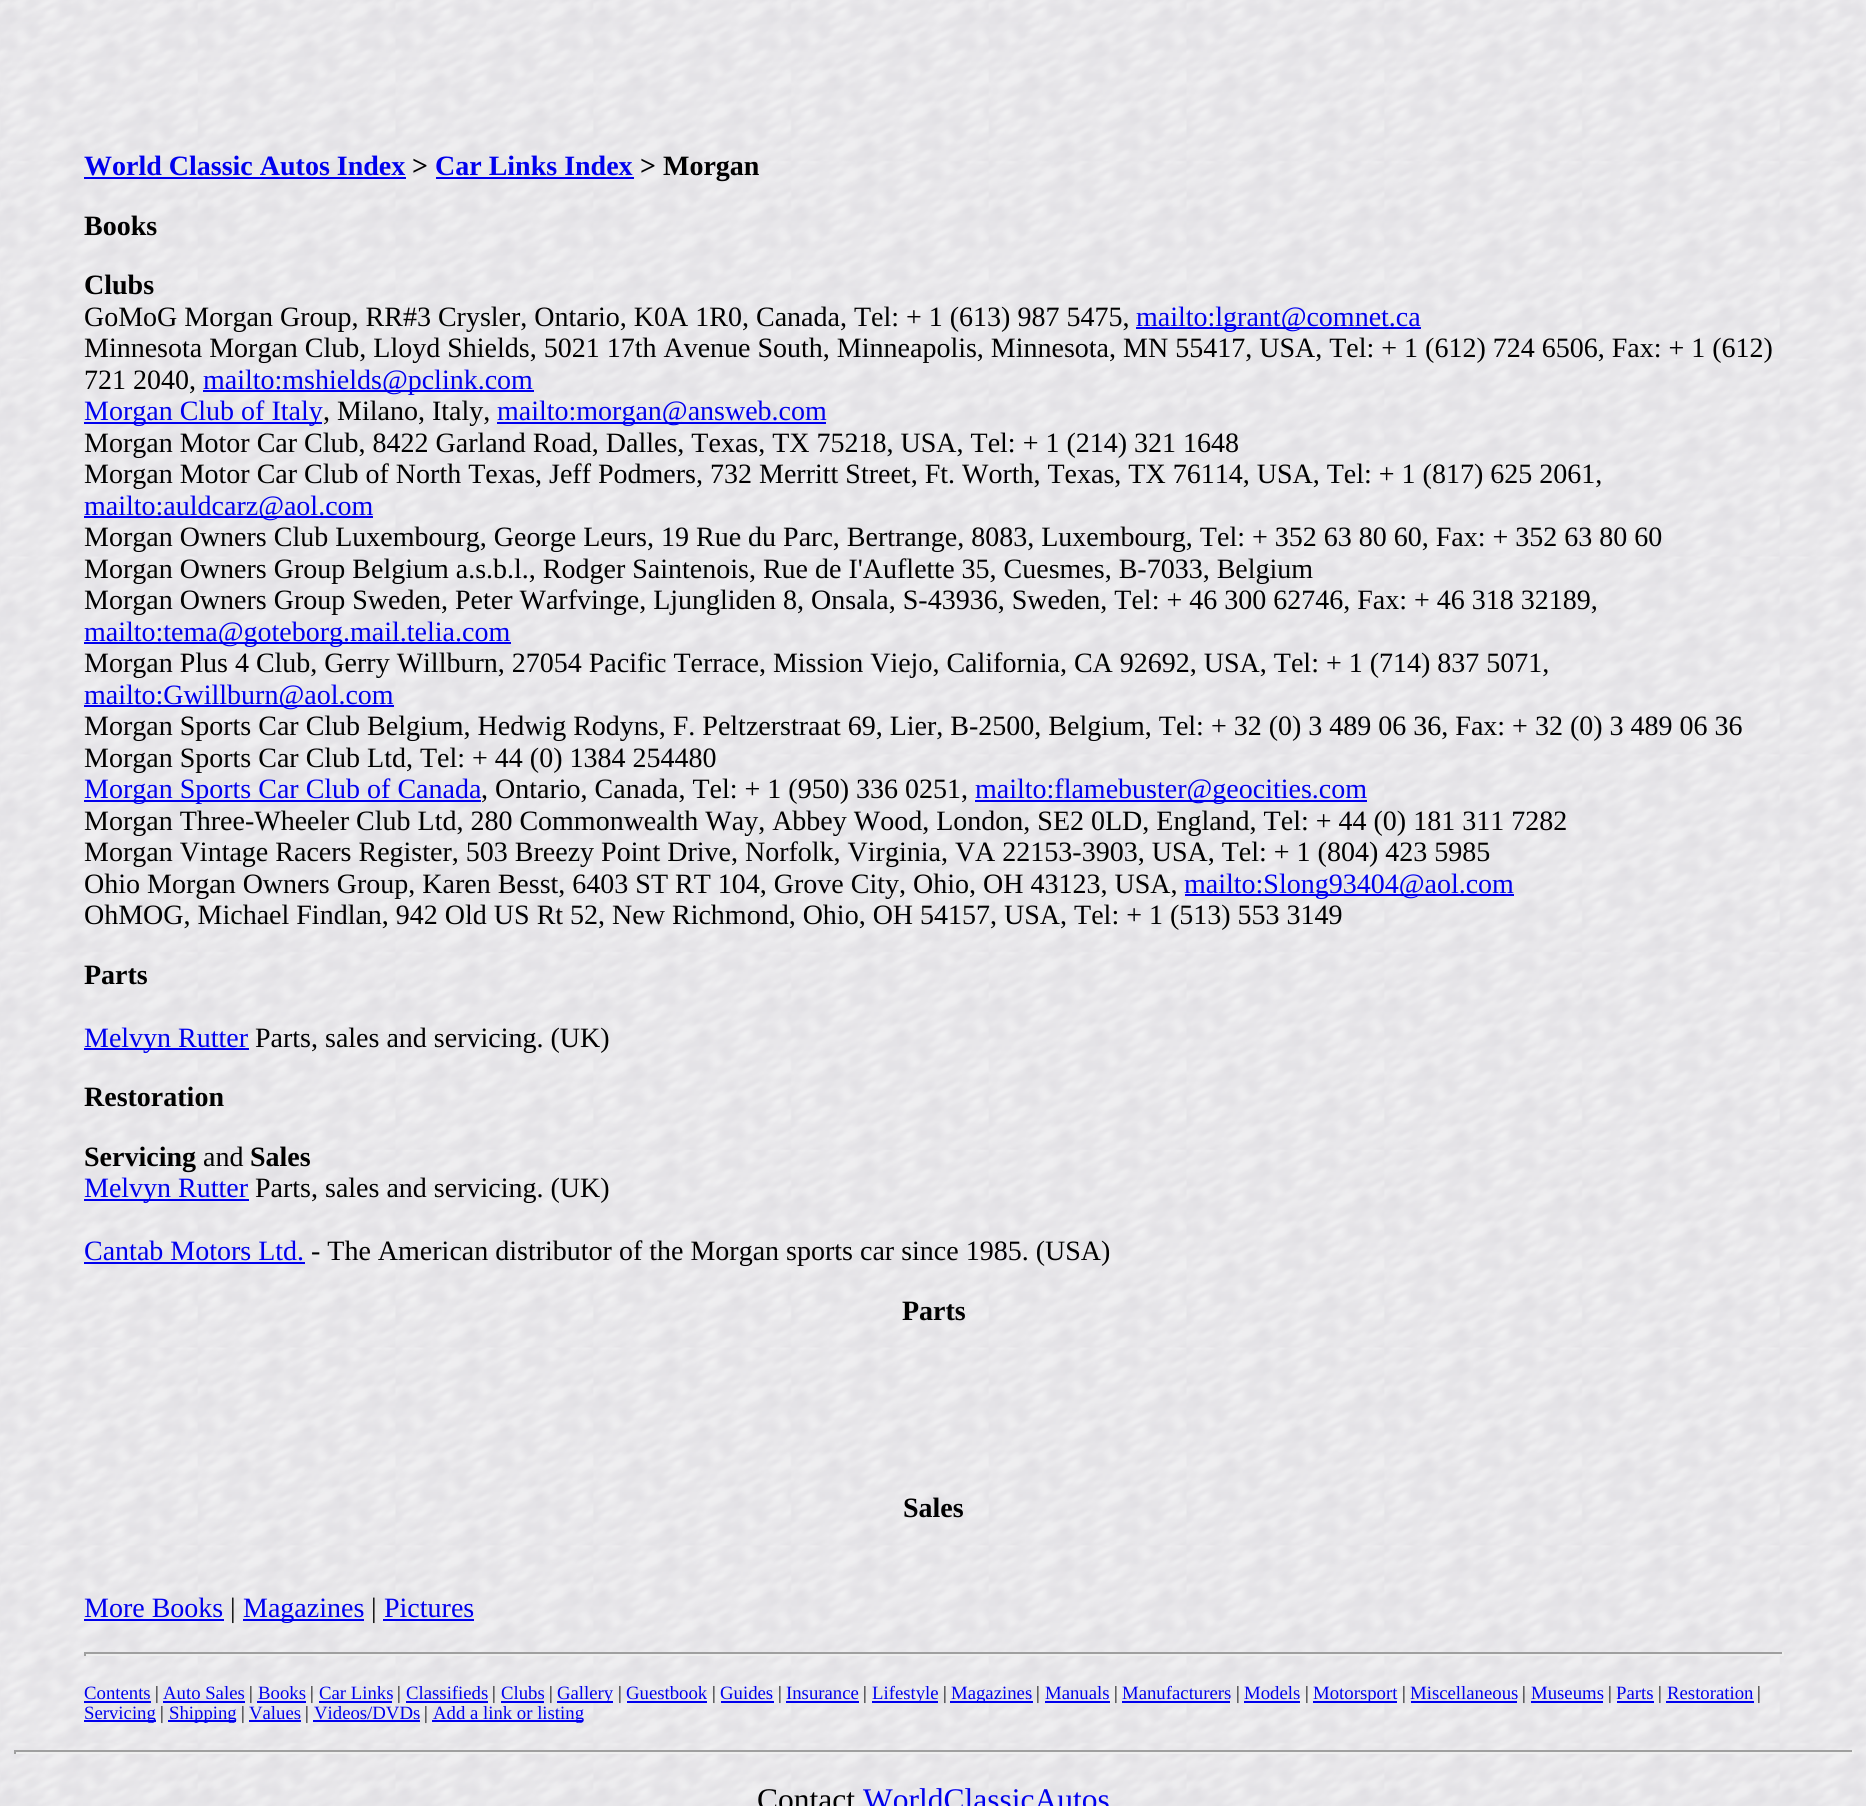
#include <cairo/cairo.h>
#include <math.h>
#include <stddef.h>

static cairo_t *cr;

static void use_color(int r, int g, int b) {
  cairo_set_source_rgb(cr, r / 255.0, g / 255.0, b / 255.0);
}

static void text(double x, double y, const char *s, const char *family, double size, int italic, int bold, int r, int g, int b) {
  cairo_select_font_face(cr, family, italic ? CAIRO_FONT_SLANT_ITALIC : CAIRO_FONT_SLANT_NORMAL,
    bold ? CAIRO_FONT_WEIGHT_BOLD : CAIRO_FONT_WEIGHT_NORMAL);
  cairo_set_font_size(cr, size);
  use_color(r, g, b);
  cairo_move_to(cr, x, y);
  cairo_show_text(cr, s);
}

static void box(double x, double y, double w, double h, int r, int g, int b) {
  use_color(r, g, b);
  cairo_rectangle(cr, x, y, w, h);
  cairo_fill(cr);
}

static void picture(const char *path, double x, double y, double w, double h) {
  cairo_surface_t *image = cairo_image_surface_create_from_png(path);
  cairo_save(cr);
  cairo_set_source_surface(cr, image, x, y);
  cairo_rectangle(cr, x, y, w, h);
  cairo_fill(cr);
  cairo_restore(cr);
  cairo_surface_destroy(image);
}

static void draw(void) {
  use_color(255, 255, 255);
  cairo_paint(cr);
  picture("img_01.png", 0, 0, 1866, 1806);
  box(84, 177, 322, 2, 0, 0, 238);
  box(436, 177, 198, 2, 0, 0, 238);
  box(1136, 327, 285, 2, 0, 0, 238);
  box(203, 390, 331, 2, 0, 0, 238);
  box(84, 422, 238, 2, 0, 0, 238);
  box(497, 422, 329, 2, 0, 0, 238);
  box(84, 516, 289, 2, 0, 0, 238);
  box(84, 642, 427, 2, 0, 0, 238);
  box(84, 705, 310, 2, 0, 0, 238);
  box(84, 800, 397, 2, 0, 0, 238);
  box(975, 800, 392, 2, 0, 0, 238);
  box(1185, 894, 329, 2, 0, 0, 238);
  box(84, 1048, 165, 2, 0, 0, 238);
  box(84, 1199, 165, 2, 0, 0, 238);
  box(84, 1262, 221, 2, 0, 0, 238);
  box(84, 1619, 140, 2, 0, 0, 238);
  box(243, 1619, 121, 2, 0, 0, 238);
  box(383, 1619, 91, 2, 0, 0, 238);
  box(84, 1652, 1699, 2, 159, 159, 159);
  box(1782, 1652, 2, 4, 238, 238, 238);
  box(84, 1654, 1699, 2, 238, 238, 238);
  box(84, 1652, 2, 4, 159, 159, 159);
  box(84, 1701, 67, 2, 0, 0, 238);
  box(163, 1701, 82, 2, 0, 0, 238);
  box(257, 1701, 49, 2, 0, 0, 238);
  box(319, 1701, 73, 2, 0, 0, 238);
  box(406, 1701, 82, 2, 0, 0, 238);
  box(501, 1701, 43, 2, 0, 0, 238);
  box(557, 1701, 56, 2, 0, 0, 238);
  box(627, 1701, 80, 2, 0, 0, 238);
  box(721, 1701, 53, 2, 0, 0, 238);
  box(786, 1701, 73, 2, 0, 0, 238);
  box(872, 1701, 66, 2, 0, 0, 238);
  box(950, 1701, 83, 2, 0, 0, 238);
  box(1045, 1701, 65, 2, 0, 0, 238);
  box(1122, 1701, 108, 2, 0, 0, 238);
  box(1244, 1701, 56, 2, 0, 0, 238);
  box(1313, 1701, 84, 2, 0, 0, 238);
  box(1411, 1701, 106, 2, 0, 0, 238);
  box(1531, 1701, 72, 2, 0, 0, 238);
  box(1617, 1701, 37, 2, 0, 0, 238);
  box(1666, 1701, 88, 2, 0, 0, 238);
  box(84, 1720, 72, 2, 0, 0, 238);
  box(168, 1720, 68, 2, 0, 0, 238);
  box(249, 1720, 52, 2, 0, 0, 238);
  box(313, 1720, 107, 2, 0, 0, 238);
  box(432, 1720, 151, 2, 0, 0, 238);
  box(14, 1750, 1839, 2, 159, 159, 159);
  box(1852, 1750, 2, 4, 238, 238, 238);
  box(14, 1752, 1839, 2, 238, 238, 238);
  box(14, 1750, 2, 4, 159, 159, 159);
  text(84, 175, "World Classic Autos Index", "Liberation Serif", 28, 0, 1, 0, 0, 238);
  text(412, 175, ">", "Liberation Serif", 28, 0, 1, 0, 0, 0);
  text(435, 175, "Car Links Index", "Liberation Serif", 28, 0, 1, 0, 0, 238);
  text(640, 175, "> Morgan", "Liberation Serif", 28, 0, 1, 0, 0, 0);
  text(84, 235, "Books", "Liberation Serif", 28, 0, 1, 0, 0, 0);
  text(84, 294, "Clubs", "Liberation Serif", 28, 0, 1, 0, 0, 0);
  text(84, 326, "GoMoG Morgan Group, RR#3 Crysler, Ontario, K0A 1R0, Canada, Tel: + 1 (613) 987 5475,", "Liberation Serif", 28, 0, 0, 0, 0, 0);
  text(1136, 326, "mailto:lgrant@comnet.ca", "Liberation Serif", 28, 0, 0, 0, 0, 238);
  text(84, 357, "Minnesota Morgan Club, Lloyd Shields, 5021 17th Avenue South, Minneapolis, Minnesota, MN 55417, USA, Tel: + 1 (612) 724 6506, Fax: + 1 (612)", "Liberation Serif", 28, 0, 0, 0, 0, 0);
  text(84, 389, "721 2040,", "Liberation Serif", 28, 0, 0, 0, 0, 0);
  text(203, 389, "mailto:mshields@pclink.com", "Liberation Serif", 28, 0, 0, 0, 0, 238);
  text(84, 420, "Morgan Club of Italy", "Liberation Serif", 28, 0, 0, 0, 0, 238);
  text(323, 420, ", Milano, Italy,", "Liberation Serif", 28, 0, 0, 0, 0, 0);
  text(497, 420, "mailto:morgan@answeb.com", "Liberation Serif", 28, 0, 0, 0, 0, 238);
  text(84, 452, "Morgan Motor Car Club, 8422 Garland Road, Dalles, Texas, TX 75218, USA, Tel: + 1 (214) 321 1648", "Liberation Serif", 28, 0, 0, 0, 0, 0);
  text(84, 483, "Morgan Motor Car Club of North Texas, Jeff Podmers, 732 Merritt Street, Ft. Worth, Texas, TX 76114, USA, Tel: + 1 (817) 625 2061,", "Liberation Serif", 28, 0, 0, 0, 0, 0);
  text(84, 515, "mailto:auldcarz@aol.com", "Liberation Serif", 28, 0, 0, 0, 0, 238);
  text(84, 546, "Morgan Owners Club Luxembourg, George Leurs, 19 Rue du Parc, Bertrange, 8083, Luxembourg, Tel: + 352 63 80 60, Fax: + 352 63 80 60", "Liberation Serif", 28, 0, 0, 0, 0, 0);
  text(84, 578, "Morgan Owners Group Belgium a.s.b.l., Rodger Saintenois, Rue de I'Auflette 35, Cuesmes, B-7033, Belgium", "Liberation Serif", 28, 0, 0, 0, 0, 0);
  text(84, 609, "Morgan Owners Group Sweden, Peter Warfvinge, Ljungliden 8, Onsala, S-43936, Sweden, Tel: + 46 300 62746, Fax: + 46 318 32189,", "Liberation Serif", 28, 0, 0, 0, 0, 0);
  text(84, 641, "mailto:tema@goteborg.mail.telia.com", "Liberation Serif", 28, 0, 0, 0, 0, 238);
  text(84, 672, "Morgan Plus 4 Club, Gerry Willburn, 27054 Pacific Terrace, Mission Viejo, California, CA 92692, USA, Tel: + 1 (714) 837 5071,", "Liberation Serif", 28, 0, 0, 0, 0, 0);
  text(84, 704, "mailto:Gwillburn@aol.com", "Liberation Serif", 28, 0, 0, 0, 0, 238);
  text(84, 735, "Morgan Sports Car Club Belgium, Hedwig Rodyns, F. Peltzerstraat 69, Lier, B-2500, Belgium, Tel: + 32 (0) 3 489 06 36, Fax: + 32 (0) 3 489 06 36", "Liberation Serif", 28, 0, 0, 0, 0, 0);
  text(84, 767, "Morgan Sports Car Club Ltd, Tel: + 44 (0) 1384 254480", "Liberation Serif", 28, 0, 0, 0, 0, 0);
  text(84, 798, "Morgan Sports Car Club of Canada", "Liberation Serif", 28, 0, 0, 0, 0, 238);
  text(481, 798, ", Ontario, Canada, Tel: + 1 (950) 336 0251,", "Liberation Serif", 28, 0, 0, 0, 0, 0);
  text(975, 798, "mailto:flamebuster@geocities.com", "Liberation Serif", 28, 0, 0, 0, 0, 238);
  text(84, 830, "Morgan Three-Wheeler Club Ltd, 280 Commonwealth Way, Abbey Wood, London, SE2 0LD, England, Tel: + 44 (0) 181 311 7282", "Liberation Serif", 28, 0, 0, 0, 0, 0);
  text(84, 861, "Morgan Vintage Racers Register, 503 Breezy Point Drive, Norfolk, Virginia, VA 22153-3903, USA, Tel: + 1 (804) 423 5985", "Liberation Serif", 28, 0, 0, 0, 0, 0);
  text(84, 893, "Ohio Morgan Owners Group, Karen Besst, 6403 ST RT 104, Grove City, Ohio, OH 43123, USA,", "Liberation Serif", 28, 0, 0, 0, 0, 0);
  text(1184, 893, "mailto:Slong93404@aol.com", "Liberation Serif", 28, 0, 0, 0, 0, 238);
  text(84, 924, "OhMOG, Michael Findlan, 942 Old US Rt 52, New Richmond, Ohio, OH 54157, USA, Tel: + 1 (513) 553 3149", "Liberation Serif", 28, 0, 0, 0, 0, 0);
  text(84, 984, "Parts", "Liberation Serif", 28, 0, 1, 0, 0, 0);
  text(84, 1047, "Melvyn Rutter", "Liberation Serif", 28, 0, 0, 0, 0, 238);
  text(255, 1047, "Parts, sales and servicing. (UK)", "Liberation Serif", 28, 0, 0, 0, 0, 0);
  text(84, 1106, "Restoration", "Liberation Serif", 28, 0, 1, 0, 0, 0);
  text(84, 1166, "Servicing", "Liberation Serif", 28, 0, 1, 0, 0, 0);
  text(203, 1166, "and", "Liberation Serif", 28, 0, 0, 0, 0, 0);
  text(250, 1166, "Sales", "Liberation Serif", 28, 0, 1, 0, 0, 0);
  text(84, 1197, "Melvyn Rutter", "Liberation Serif", 28, 0, 0, 0, 0, 238);
  text(255, 1197, "Parts, sales and servicing. (UK)", "Liberation Serif", 28, 0, 0, 0, 0, 0);
  text(84, 1260, "Cantab Motors Ltd.", "Liberation Serif", 28, 0, 0, 0, 0, 238);
  text(311, 1260, "- The American distributor of the Morgan sports car since 1985. (USA)", "Liberation Serif", 28, 0, 0, 0, 0, 0);
  text(902, 1320, "Parts", "Liberation Serif", 28, 0, 1, 0, 0, 0);
  text(903, 1517, "Sales", "Liberation Serif", 28, 0, 1, 0, 0, 0);
  text(84, 1617, "More Books", "Liberation Serif", 28, 0, 0, 0, 0, 238);
  text(230, 1617, "|", "Liberation Serif", 28, 0, 0, 0, 0, 0);
  text(243, 1617, "Magazines", "Liberation Serif", 28, 0, 0, 0, 0, 238);
  text(371, 1617, "|", "Liberation Serif", 28, 0, 0, 0, 0, 0);
  text(384, 1617, "Pictures", "Liberation Serif", 28, 0, 0, 0, 0, 238);
  text(84, 1699, "Contents", "Liberation Serif", 18.75, 0, 0, 0, 0, 238);
  text(155, 1699, "|", "Liberation Serif", 18.75, 0, 0, 0, 0, 0);
  text(163, 1699, "Auto Sales", "Liberation Serif", 18.75, 0, 0, 0, 0, 238);
  text(249, 1699, "|", "Liberation Serif", 18.75, 0, 0, 0, 0, 0);
  text(258, 1699, "Books", "Liberation Serif", 18.75, 0, 0, 0, 0, 238);
  text(310, 1699, "|", "Liberation Serif", 18.75, 0, 0, 0, 0, 0);
  text(319, 1699, "Car Links", "Liberation Serif", 18.75, 0, 0, 0, 0, 238);
  text(397, 1699, "|", "Liberation Serif", 18.75, 0, 0, 0, 0, 0);
  text(406, 1699, "Classifieds", "Liberation Serif", 18.75, 0, 0, 0, 0, 238);
  text(492, 1699, "|", "Liberation Serif", 18.75, 0, 0, 0, 0, 0);
  text(501, 1699, "Clubs", "Liberation Serif", 18.75, 0, 0, 0, 0, 238);
  text(549, 1699, "|", "Liberation Serif", 18.75, 0, 0, 0, 0, 0);
  text(557, 1699, "Gallery", "Liberation Serif", 18.75, 0, 0, 0, 0, 238);
  text(618, 1699, "|", "Liberation Serif", 18.75, 0, 0, 0, 0, 0);
  text(626, 1699, "Guestbook", "Liberation Serif", 18.75, 0, 0, 0, 0, 238);
  text(712, 1699, "|", "Liberation Serif", 18.75, 0, 0, 0, 0, 0);
  text(720, 1699, "Guides", "Liberation Serif", 18.75, 0, 0, 0, 0, 238);
  text(778, 1699, "|", "Liberation Serif", 18.75, 0, 0, 0, 0, 0);
  text(786, 1699, "Insurance", "Liberation Serif", 18.75, 0, 0, 0, 0, 238);
  text(863, 1699, "|", "Liberation Serif", 18.75, 0, 0, 0, 0, 0);
  text(872, 1699, "Lifestyle", "Liberation Serif", 18.75, 0, 0, 0, 0, 238);
  text(943, 1699, "|", "Liberation Serif", 18.75, 0, 0, 0, 0, 0);
  text(951, 1699, "Magazines", "Liberation Serif", 18.75, 0, 0, 0, 0, 238);
  text(1036, 1699, "|", "Liberation Serif", 18.75, 0, 0, 0, 0, 0);
  text(1045, 1699, "Manuals", "Liberation Serif", 18.75, 0, 0, 0, 0, 238);
  text(1114, 1699, "|", "Liberation Serif", 18.75, 0, 0, 0, 0, 0);
  text(1122, 1699, "Manufacturers", "Liberation Serif", 18.75, 0, 0, 0, 0, 238);
  text(1236, 1699, "|", "Liberation Serif", 18.75, 0, 0, 0, 0, 0);
  text(1244, 1699, "Models", "Liberation Serif", 18.75, 0, 0, 0, 0, 238);
  text(1305, 1699, "|", "Liberation Serif", 18.75, 0, 0, 0, 0, 0);
  text(1313, 1699, "Motorsport", "Liberation Serif", 18.75, 0, 0, 0, 0, 238);
  text(1402, 1699, "|", "Liberation Serif", 18.75, 0, 0, 0, 0, 0);
  text(1410, 1699, "Miscellaneous", "Liberation Serif", 18.75, 0, 0, 0, 0, 238);
  text(1522, 1699, "|", "Liberation Serif", 18.75, 0, 0, 0, 0, 0);
  text(1531, 1699, "Museums", "Liberation Serif", 18.75, 0, 0, 0, 0, 238);
  text(1608, 1699, "|", "Liberation Serif", 18.75, 0, 0, 0, 0, 0);
  text(1616, 1699, "Parts", "Liberation Serif", 18.75, 0, 0, 0, 0, 238);
  text(1658, 1699, "|", "Liberation Serif", 18.75, 0, 0, 0, 0, 0);
  text(1667, 1699, "Restoration", "Liberation Serif", 18.75, 0, 0, 0, 0, 238);
  text(1757, 1699, "|", "Liberation Serif", 18.75, 0, 0, 0, 0, 0);
  text(84, 1719, "Servicing", "Liberation Serif", 18.75, 0, 0, 0, 0, 238);
  text(160, 1719, "|", "Liberation Serif", 18.75, 0, 0, 0, 0, 0);
  text(169, 1719, "Shipping", "Liberation Serif", 18.75, 0, 0, 0, 0, 238);
  text(241, 1719, "|", "Liberation Serif", 18.75, 0, 0, 0, 0, 0);
  text(249, 1719, "Values", "Liberation Serif", 18.75, 0, 0, 0, 0, 238);
  text(305, 1719, "|", "Liberation Serif", 18.75, 0, 0, 0, 0, 0);
  text(314, 1719, "Videos/DVDs", "Liberation Serif", 18.75, 0, 0, 0, 0, 238);
  text(424, 1719, "|", "Liberation Serif", 18.75, 0, 0, 0, 0, 0);
  text(433, 1719, "Add a link or listing", "Liberation Serif", 18.75, 0, 0, 0, 0, 238);
  text(757, 1810, "Contact", "Liberation Serif", 31.5, 0, 0, 0, 0, 0);
  text(863, 1810, "WorldClassicAutos", "Liberation Serif", 31.5, 0, 0, 0, 0, 238);
}

int main(void) {
  cairo_surface_t *surface = cairo_image_surface_create(CAIRO_FORMAT_RGB24, 1866, 1806);
  cr = cairo_create(surface);
  cairo_font_options_t *options = cairo_font_options_create();
  cairo_font_options_set_hint_metrics(options, CAIRO_HINT_METRICS_OFF);
  cairo_font_options_set_hint_style(options, CAIRO_HINT_STYLE_NONE);
  cairo_set_font_options(cr, options);
  cairo_set_miter_limit(cr, 4);
  draw();
  cairo_surface_write_to_png(surface, "out.png");
  cairo_font_options_destroy(options);
  cairo_destroy(cr);
  cairo_surface_destroy(surface);
  return 0;
}
